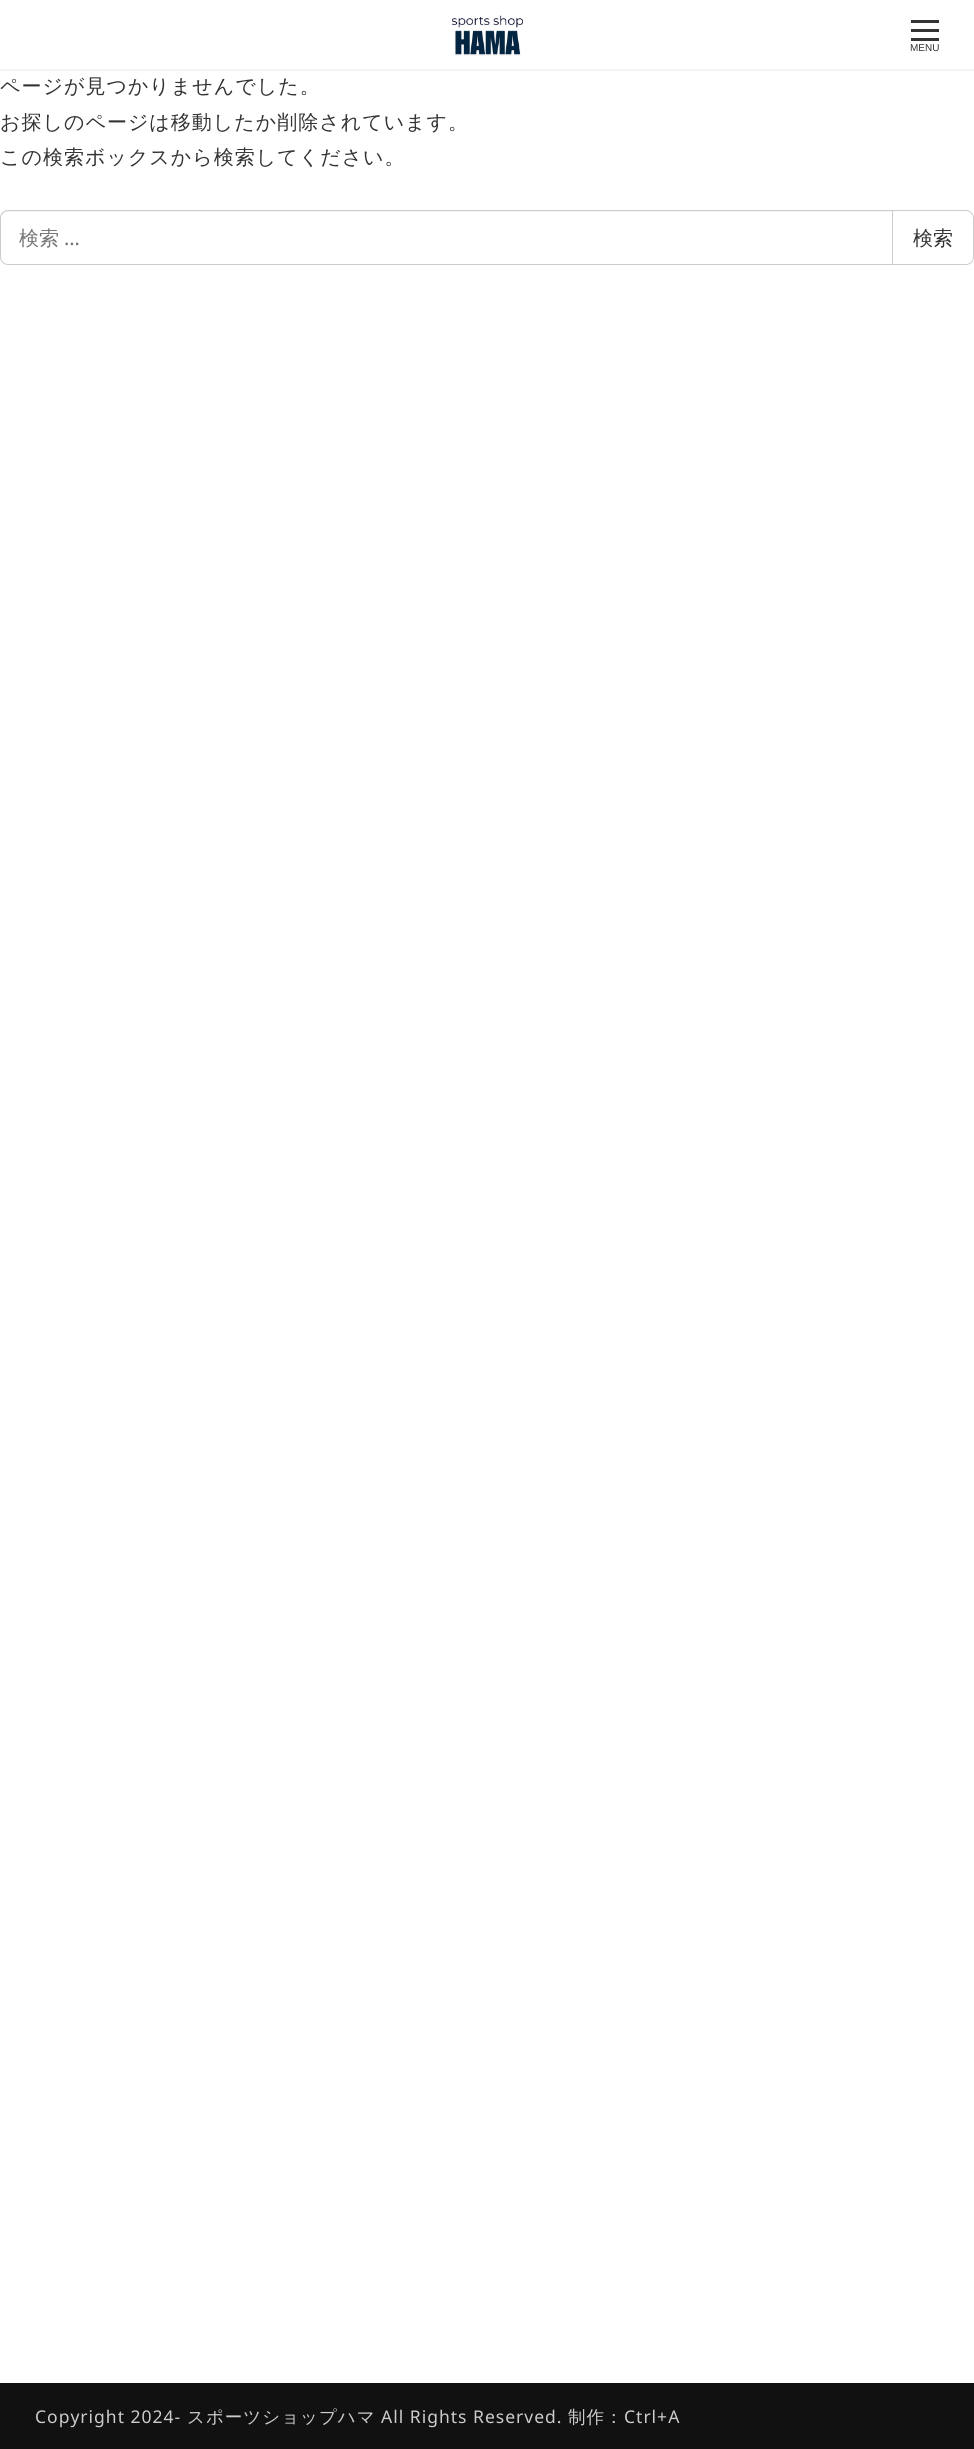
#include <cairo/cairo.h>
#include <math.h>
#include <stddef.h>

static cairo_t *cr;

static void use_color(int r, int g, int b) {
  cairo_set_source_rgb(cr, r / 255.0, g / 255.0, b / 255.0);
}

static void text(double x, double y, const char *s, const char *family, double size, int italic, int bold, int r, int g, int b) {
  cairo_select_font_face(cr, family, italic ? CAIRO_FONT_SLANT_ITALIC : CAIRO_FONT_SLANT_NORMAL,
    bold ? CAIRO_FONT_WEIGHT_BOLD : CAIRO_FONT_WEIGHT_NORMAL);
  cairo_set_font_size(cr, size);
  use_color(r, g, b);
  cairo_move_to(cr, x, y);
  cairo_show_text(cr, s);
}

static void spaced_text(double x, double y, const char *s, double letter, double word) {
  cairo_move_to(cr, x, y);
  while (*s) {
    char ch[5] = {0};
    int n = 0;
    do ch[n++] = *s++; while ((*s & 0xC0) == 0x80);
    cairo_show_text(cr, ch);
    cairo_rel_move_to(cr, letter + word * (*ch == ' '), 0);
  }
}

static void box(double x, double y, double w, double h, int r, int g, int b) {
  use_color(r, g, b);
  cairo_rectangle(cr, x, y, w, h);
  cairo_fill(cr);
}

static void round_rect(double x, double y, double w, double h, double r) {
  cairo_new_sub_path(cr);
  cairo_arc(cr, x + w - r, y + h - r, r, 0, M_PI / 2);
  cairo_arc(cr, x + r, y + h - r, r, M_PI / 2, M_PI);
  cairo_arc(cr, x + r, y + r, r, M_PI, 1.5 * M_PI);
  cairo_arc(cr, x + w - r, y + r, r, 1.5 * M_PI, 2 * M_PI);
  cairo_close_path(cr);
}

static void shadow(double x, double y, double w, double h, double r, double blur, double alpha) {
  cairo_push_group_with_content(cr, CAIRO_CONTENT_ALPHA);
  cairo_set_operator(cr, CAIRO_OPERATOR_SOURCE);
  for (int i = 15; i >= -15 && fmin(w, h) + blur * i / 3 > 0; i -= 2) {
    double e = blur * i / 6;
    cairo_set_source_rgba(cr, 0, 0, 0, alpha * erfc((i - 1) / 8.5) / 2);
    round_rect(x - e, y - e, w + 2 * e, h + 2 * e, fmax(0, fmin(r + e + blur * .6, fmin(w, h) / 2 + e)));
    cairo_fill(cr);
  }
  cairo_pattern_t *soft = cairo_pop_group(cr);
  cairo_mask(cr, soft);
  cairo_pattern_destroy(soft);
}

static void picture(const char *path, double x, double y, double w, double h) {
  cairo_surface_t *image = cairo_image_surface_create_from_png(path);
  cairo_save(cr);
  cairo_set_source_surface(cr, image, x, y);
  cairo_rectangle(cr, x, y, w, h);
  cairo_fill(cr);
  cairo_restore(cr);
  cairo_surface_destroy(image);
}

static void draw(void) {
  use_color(255, 255, 255);
  cairo_paint(cr);
  use_color(0, 0, 0);
  shadow(-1, 0, 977, 71, 0, 1, 0.05);
  box(0, 0, 974, 69, 255, 255, 255);
  picture("img_01.png", 451, 15, 72, 41);
  box(911, 20, 28, 3, 51, 51, 51);
  box(911, 29, 28, 3, 51, 51, 51);
  box(911, 38, 28, 3, 51, 51, 51);
  cairo_new_path(cr);
  cairo_move_to(cr, 891.5, 210.5);
  cairo_line_to(cr, 966, 210.5);
  cairo_curve_to(cr, 970, 210.5, 973.5, 214, 973.5, 218);
  cairo_line_to(cr, 973.5, 257);
  cairo_curve_to(cr, 973.5, 261, 970, 264.5, 966, 264.5);
  cairo_line_to(cr, 891.5, 264.5);
  cairo_close_path(cr);
  use_color(204, 204, 204);
  cairo_set_line_width(cr, 1);
  cairo_stroke(cr);
  use_color(255, 255, 255);
  cairo_new_path(cr);
  cairo_move_to(cr, 8, 210);
  cairo_line_to(cr, 893, 210);
  cairo_line_to(cr, 893, 265);
  cairo_line_to(cr, 8, 265);
  cairo_curve_to(cr, 3.5, 265, 0, 261.5, 0, 257);
  cairo_line_to(cr, 0, 218);
  cairo_curve_to(cr, 0, 213.5, 3.5, 210, 8, 210);
  cairo_close_path(cr);
  cairo_fill(cr);
  use_color(246, 246, 246);
  cairo_new_path(cr);
  cairo_move_to(cr, 8, 212);
  cairo_line_to(cr, 891, 212);
  cairo_line_to(cr, 891, 211);
  cairo_line_to(cr, 7, 211);
  cairo_curve_to(cr, 2, 211, 1, 215, 1, 219);
  cairo_curve_to(cr, 1, 215, 4, 212, 8, 212);
  cairo_close_path(cr);
  cairo_fill(cr);
  cairo_new_path(cr);
  cairo_move_to(cr, 8, 210.5);
  cairo_line_to(cr, 892.5, 210.5);
  cairo_line_to(cr, 892.5, 264.5);
  cairo_line_to(cr, 8, 264.5);
  cairo_curve_to(cr, 4, 264.5, 0.5, 261, 0.5, 257);
  cairo_line_to(cr, 0.5, 218);
  cairo_curve_to(cr, 0.5, 214, 4, 210.5, 8, 210.5);
  cairo_close_path(cr);
  use_color(204, 204, 204);
  cairo_stroke(cr);
  box(0, 2383, 974, 66, 17, 17, 17);
  text(910, 51, "MENU", "Liberation Sans", 10, 0, 0, 51, 51, 51);
  cairo_select_font_face(cr, "WenQuanYi Zen Hei Medium", CAIRO_FONT_SLANT_NORMAL, CAIRO_FONT_WEIGHT_NORMAL);
  cairo_set_font_size(cr, 20);
  spaced_text(0, 93, "ページが見つかりませんでした。", 1, 0);
  spaced_text(0, 129, "お探しのページは移動したか削除されています。", 1, 0);
  spaced_text(0, 164, "この検索ボックスから検索してください。", 1, 0);
  text(19, 245, "検索", "WenQuanYi Zen Hei Medium", 20, 0, 0, 117, 117, 117);
  text(64, 245, "…", "Noto Sans", 20, 0, 0, 117, 117, 117);
  text(913, 245, "検索", "WenQuanYi Zen Hei Medium", 20, 0, 0, 51, 51, 51);
  cairo_select_font_face(cr, "Noto Sans", CAIRO_FONT_SLANT_NORMAL, CAIRO_FONT_WEIGHT_NORMAL);
  cairo_set_font_size(cr, 17.5);
  use_color(204, 204, 204);
  spaced_text(35, 2423, "Copyright 2024-", 1, 0);
  cairo_select_font_face(cr, "WenQuanYi Zen Hei Medium", CAIRO_FONT_SLANT_NORMAL, CAIRO_FONT_WEIGHT_NORMAL);
  spaced_text(187, 2423, "スポーツショップハマ", 1, 0);
  cairo_select_font_face(cr, "Noto Sans", CAIRO_FONT_SLANT_NORMAL, CAIRO_FONT_WEIGHT_NORMAL);
  spaced_text(381, 2423, "All Rights Reserved.", 1, 0);
  cairo_select_font_face(cr, "WenQuanYi Zen Hei Medium", CAIRO_FONT_SLANT_NORMAL, CAIRO_FONT_WEIGHT_NORMAL);
  spaced_text(568, 2423, "制作：", 1, 0);
  cairo_select_font_face(cr, "Noto Sans", CAIRO_FONT_SLANT_NORMAL, CAIRO_FONT_WEIGHT_NORMAL);
  spaced_text(624, 2423, "Ctrl+A", 1, 0);
}

int main(void) {
  cairo_surface_t *surface = cairo_image_surface_create(CAIRO_FORMAT_RGB24, 974, 2449);
  cr = cairo_create(surface);
  cairo_font_options_t *options = cairo_font_options_create();
  cairo_font_options_set_hint_metrics(options, CAIRO_HINT_METRICS_OFF);
  cairo_font_options_set_hint_style(options, CAIRO_HINT_STYLE_NONE);
  cairo_set_font_options(cr, options);
  cairo_set_miter_limit(cr, 4);
  draw();
  cairo_surface_write_to_png(surface, "out.png");
  cairo_font_options_destroy(options);
  cairo_destroy(cr);
  cairo_surface_destroy(surface);
  return 0;
}
